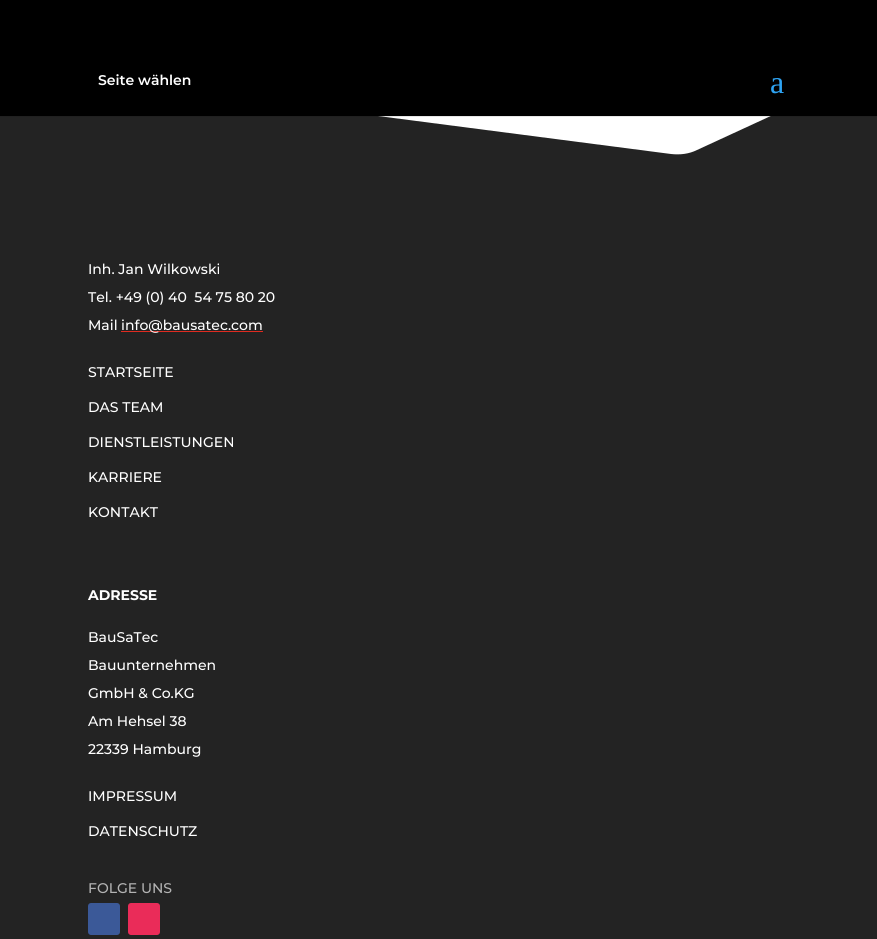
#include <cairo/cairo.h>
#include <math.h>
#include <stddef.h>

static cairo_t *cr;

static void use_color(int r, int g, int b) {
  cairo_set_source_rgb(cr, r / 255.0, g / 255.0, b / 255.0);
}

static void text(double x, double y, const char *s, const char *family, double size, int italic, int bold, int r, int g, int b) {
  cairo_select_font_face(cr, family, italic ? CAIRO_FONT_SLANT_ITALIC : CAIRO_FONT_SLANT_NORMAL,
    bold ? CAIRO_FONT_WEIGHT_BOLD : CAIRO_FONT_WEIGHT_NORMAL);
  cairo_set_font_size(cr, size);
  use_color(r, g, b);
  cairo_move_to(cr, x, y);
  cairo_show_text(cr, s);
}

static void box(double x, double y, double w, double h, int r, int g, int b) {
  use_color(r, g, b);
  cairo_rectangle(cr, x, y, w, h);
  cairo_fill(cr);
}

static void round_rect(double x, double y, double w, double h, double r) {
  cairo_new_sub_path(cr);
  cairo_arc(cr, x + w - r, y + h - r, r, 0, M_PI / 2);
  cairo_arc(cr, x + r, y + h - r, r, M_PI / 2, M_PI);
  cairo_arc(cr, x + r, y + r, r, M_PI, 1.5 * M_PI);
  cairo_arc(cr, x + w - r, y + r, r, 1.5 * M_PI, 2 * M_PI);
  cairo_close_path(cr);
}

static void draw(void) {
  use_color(35, 35, 35);
  cairo_paint(cr);
  use_color(255, 255, 255);
  cairo_new_path(cr);
  cairo_move_to(cr, 671, 154);
  cairo_line_to(cr, 0, 67);
  cairo_line_to(cr, 877, 67);
  cairo_line_to(cr, 697, 150);
  cairo_curve_to(cr, 689, 154, 680, 155, 671, 154);
  cairo_close_path(cr);
  cairo_fill(cr);
  cairo_set_source_rgba(cr, 0, 0, 0, 0.1);
  cairo_rectangle(cr, 0, 116, 877, 1);
  cairo_fill(cr);
  box(0, 0, 877, 116, 0, 0, 0);
  box(121, 331, 142, 1, 224, 43, 32);
  use_color(59, 89, 152);
  round_rect(88, 903, 32, 32, 3);
  cairo_fill(cr);
  use_color(234, 44, 89);
  round_rect(128, 903, 32, 32, 3);
  cairo_fill(cr);
  text(98, 85, "Seite wählen", "Montserrat SemiBold", 14, 0, 0, 255, 255, 255);
  text(770, 93, "a", "Liberation Serif", 32, 0, 0, 46, 163, 242);
  text(88, 274, "Inh. Jan Wilkowski", "Montserrat Medium", 14, 0, 0, 255, 255, 255);
  text(88, 302, "Tel. +49 (0) 40  54 75 80 20", "Montserrat Medium", 14, 0, 0, 255, 255, 255);
  text(88, 330, "Mail", "Montserrat Medium", 14, 0, 0, 255, 255, 255);
  text(121, 330, "info@bausatec.com", "Montserrat Medium", 14, 0, 0, 255, 255, 255);
  text(88, 377, "STARTSEITE", "Montserrat Medium", 14, 0, 0, 255, 255, 255);
  text(88, 412, "DAS TEAM", "Montserrat Medium", 14, 0, 0, 255, 255, 255);
  text(88, 447, "DIENSTLEISTUNGEN", "Montserrat Medium", 14, 0, 0, 255, 255, 255);
  text(88, 482, "KARRIERE", "Montserrat Medium", 14, 0, 0, 255, 255, 255);
  text(88, 517, "KONTAKT", "Montserrat Medium", 14, 0, 0, 255, 255, 255);
  text(88, 600, "ADRESSE", "Montserrat", 14, 0, 1, 255, 255, 255);
  text(88, 642, "BauSaTec", "Montserrat Medium", 14, 0, 0, 255, 255, 255);
  text(88, 670, "Bauunternehmen", "Montserrat Medium", 14, 0, 0, 255, 255, 255);
  text(88, 698, "GmbH & Co.KG", "Montserrat Medium", 14, 0, 0, 255, 255, 255);
  text(88, 726, "Am Hehsel 38", "Montserrat Medium", 14, 0, 0, 255, 255, 255);
  text(88, 754, "22339 Hamburg", "Montserrat Medium", 14, 0, 0, 255, 255, 255);
  text(88, 801, "IMPRESSUM", "Montserrat Medium", 14, 0, 0, 255, 255, 255);
  text(88, 836, "DATENSCHUTZ", "Montserrat Medium", 14, 0, 0, 255, 255, 255);
  text(88, 893, "FOLGE UNS", "Montserrat Medium", 14, 0, 0, 179, 179, 179);
}

int main(void) {
  cairo_surface_t *surface = cairo_image_surface_create(CAIRO_FORMAT_RGB24, 877, 939);
  cr = cairo_create(surface);
  cairo_font_options_t *options = cairo_font_options_create();
  cairo_font_options_set_hint_metrics(options, CAIRO_HINT_METRICS_OFF);
  cairo_font_options_set_hint_style(options, CAIRO_HINT_STYLE_NONE);
  cairo_set_font_options(cr, options);
  cairo_set_miter_limit(cr, 4);
  draw();
  cairo_surface_write_to_png(surface, "out.png");
  cairo_font_options_destroy(options);
  cairo_destroy(cr);
  cairo_surface_destroy(surface);
  return 0;
}
